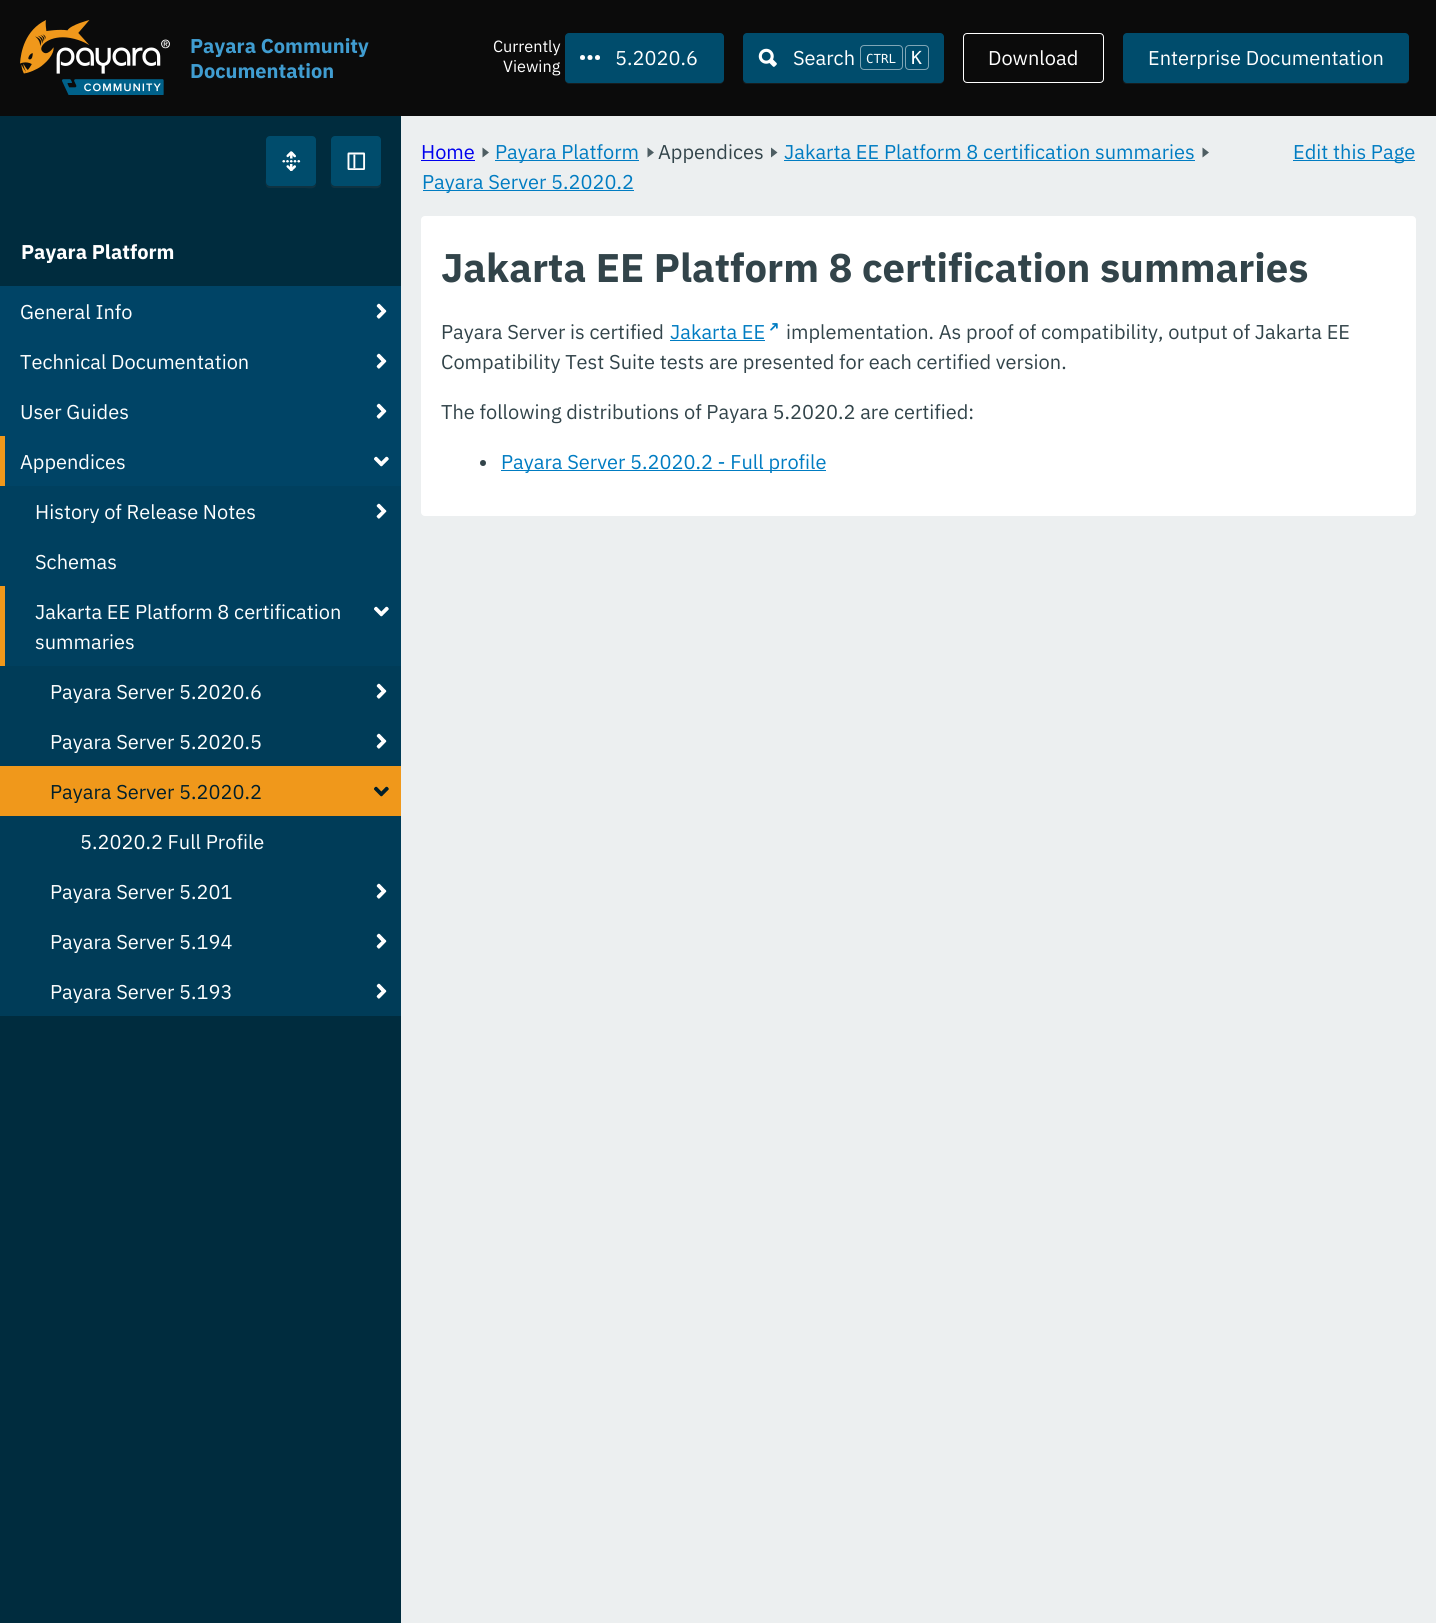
#include <cairo/cairo.h>
#include <math.h>
#include <stddef.h>

static cairo_t *cr;

static void use_color(int r, int g, int b) {
  cairo_set_source_rgb(cr, r / 255.0, g / 255.0, b / 255.0);
}

static void text(double x, double y, const char *s, const char *family, double size, int italic, int bold, int r, int g, int b) {
  cairo_select_font_face(cr, family, italic ? CAIRO_FONT_SLANT_ITALIC : CAIRO_FONT_SLANT_NORMAL,
    bold ? CAIRO_FONT_WEIGHT_BOLD : CAIRO_FONT_WEIGHT_NORMAL);
  cairo_set_font_size(cr, size);
  use_color(r, g, b);
  cairo_move_to(cr, x, y);
  cairo_show_text(cr, s);
}

static void box(double x, double y, double w, double h, int r, int g, int b) {
  use_color(r, g, b);
  cairo_rectangle(cr, x, y, w, h);
  cairo_fill(cr);
}

static void round_rect(double x, double y, double w, double h, double r) {
  cairo_new_sub_path(cr);
  cairo_arc(cr, x + w - r, y + h - r, r, 0, M_PI / 2);
  cairo_arc(cr, x + r, y + h - r, r, M_PI / 2, M_PI);
  cairo_arc(cr, x + r, y + r, r, M_PI, 1.5 * M_PI);
  cairo_arc(cr, x + w - r, y + r, r, 1.5 * M_PI, 2 * M_PI);
  cairo_close_path(cr);
}

static void picture(const char *path, double x, double y, double w, double h) {
  cairo_surface_t *image = cairo_image_surface_create_from_png(path);
  cairo_save(cr);
  cairo_set_source_surface(cr, image, x, y);
  cairo_rectangle(cr, x, y, w, h);
  cairo_fill(cr);
  cairo_restore(cr);
  cairo_surface_destroy(image);
}

static void draw(void) {
  use_color(0, 44, 62);
  cairo_paint(cr);
  box(0, 0, 1436, 116, 11, 11, 11);
  picture("img_01.png", 20, 20, 150, 75);
  use_color(23, 28, 30);
  cairo_new_path(cr);
  cairo_move_to(cr, 565, 79);
  cairo_line_to(cr, 565, 80);
  cairo_curve_to(cr, 565, 82, 567, 84, 569, 84);
  cairo_line_to(cr, 720, 84);
  cairo_curve_to(cr, 722, 84, 724, 82, 724, 80);
  cairo_line_to(cr, 724, 37);
  cairo_line_to(cr, 724, 79);
  cairo_curve_to(cr, 724, 81, 722, 82, 720, 82);
  cairo_line_to(cr, 569, 82);
  cairo_curve_to(cr, 567, 82, 565, 81, 565, 79);
  cairo_close_path(cr);
  cairo_fill(cr);
  use_color(0, 76, 108);
  round_rect(565, 33, 159, 50, 4);
  cairo_fill(cr);
  picture("img_02.png", 580, 55, 20, 5);
  use_color(23, 28, 30);
  cairo_new_path(cr);
  cairo_move_to(cr, 743, 81);
  cairo_curve_to(cr, 743, 83, 745, 84, 747, 84);
  cairo_line_to(cr, 940, 84);
  cairo_curve_to(cr, 942, 84, 944, 82, 944, 80);
  cairo_line_to(cr, 944, 37);
  cairo_line_to(cr, 944, 79);
  cairo_curve_to(cr, 944, 81, 942, 82, 940, 82);
  cairo_line_to(cr, 746, 82);
  cairo_curve_to(cr, 745, 82, 744, 82, 743, 81);
  cairo_close_path(cr);
  cairo_fill(cr);
  use_color(0, 76, 108);
  round_rect(743, 33, 201, 50, 4);
  cairo_fill(cr);
  picture("img_03.png", 758, 48, 19, 19);
  round_rect(860.5, 45.5, 42, 24, 3.5);
  use_color(128, 166, 182);
  cairo_set_line_width(cr, 1);
  cairo_stroke(cr);
  round_rect(905.5, 45.5, 23, 24, 3.5);
  cairo_stroke(cr);
  round_rect(963.5, 33.5, 140, 49, 3.5);
  use_color(255, 255, 255);
  cairo_stroke(cr);
  use_color(23, 28, 30);
  cairo_new_path(cr);
  cairo_move_to(cr, 1123, 81);
  cairo_curve_to(cr, 1123, 83, 1125, 84, 1127, 84);
  cairo_line_to(cr, 1405, 84);
  cairo_curve_to(cr, 1407, 84, 1409, 82, 1409, 80);
  cairo_line_to(cr, 1409, 37);
  cairo_line_to(cr, 1409, 79);
  cairo_curve_to(cr, 1409, 81, 1407, 82, 1405, 82);
  cairo_line_to(cr, 1126, 82);
  cairo_curve_to(cr, 1125, 82, 1124, 82, 1123, 81);
  cairo_close_path(cr);
  cairo_fill(cr);
  use_color(0, 76, 108);
  round_rect(1123, 33, 286, 50, 4);
  cairo_fill(cr);
  use_color(15, 51, 66);
  cairo_new_path(cr);
  cairo_move_to(cr, 266, 141);
  cairo_line_to(cr, 266, 177);
  cairo_curve_to(cr, 266, 180, 264, 187, 269, 188);
  cairo_line_to(cr, 305, 188);
  cairo_curve_to(cr, 308, 188, 316, 190, 316, 184);
  cairo_curve_to(cr, 315, 185, 314, 186, 312, 186);
  cairo_line_to(cr, 270, 186);
  cairo_curve_to(cr, 268, 186, 266, 185, 266, 182);
  cairo_close_path(cr);
  cairo_fill(cr);
  use_color(0, 76, 108);
  round_rect(266, 136, 50, 50, 4);
  cairo_fill(cr);
  picture("img_04.png", 282, 151, 19, 20);
  use_color(15, 51, 66);
  cairo_new_path(cr);
  cairo_move_to(cr, 331, 141);
  cairo_line_to(cr, 331, 177);
  cairo_curve_to(cr, 331, 180, 329, 187, 334, 188);
  cairo_line_to(cr, 370, 188);
  cairo_curve_to(cr, 373, 188, 381, 190, 381, 184);
  cairo_curve_to(cr, 380, 185, 379, 186, 378, 186);
  cairo_line_to(cr, 335, 186);
  cairo_curve_to(cr, 333, 186, 331, 185, 331, 182);
  cairo_close_path(cr);
  cairo_fill(cr);
  use_color(0, 76, 108);
  round_rect(331, 136, 50, 50, 4);
  cairo_fill(cr);
  picture("img_05.png", 347, 152, 19, 18);
  box(0, 286, 401, 150, 0, 68, 102);
  picture("img_06.png", 376, 303, 11, 16);
  picture("img_06.png", 376, 353, 11, 16);
  picture("img_06.png", 376, 403, 11, 16);
  box(5, 436, 396, 50, 0, 68, 102);
  box(0, 436, 5, 50, 240, 152, 27);
  picture("img_07.png", 374, 456, 15, 11);
  box(0, 486, 401, 100, 0, 64, 95);
  picture("img_08.png", 376, 503, 11, 16);
  box(5, 586, 396, 80, 0, 64, 95);
  box(0, 586, 5, 80, 240, 152, 27);
  picture("img_09.png", 374, 606, 15, 11);
  box(0, 666, 401, 100, 0, 60, 88);
  picture("img_10.png", 376, 683, 11, 16);
  picture("img_10.png", 376, 733, 11, 16);
  box(0, 766, 401, 50, 240, 152, 27);
  picture("img_11.png", 374, 786, 15, 11);
  box(0, 816, 401, 200, 0, 60, 88);
  picture("img_10.png", 376, 883, 11, 16);
  picture("img_10.png", 376, 933, 11, 16);
  picture("img_10.png", 376, 983, 11, 16);
  box(401, 116, 1035, 1507, 236, 239, 240);
  box(421, 160, 54, 1, 0, 0, 238);
  use_color(78, 94, 99);
  cairo_new_path(cr);
  cairo_move_to(cr, 482.5, 157.5);
  cairo_line_to(cr, 482.5, 147.5);
  cairo_line_to(cr, 489, 152.5);
  cairo_close_path(cr);
  cairo_fill(cr);
  box(495, 160, 144, 1, 0, 124, 194);
  use_color(78, 94, 99);
  cairo_new_path(cr);
  cairo_move_to(cr, 647.5, 157.5);
  cairo_line_to(cr, 647.5, 147.5);
  cairo_line_to(cr, 654, 152.5);
  cairo_close_path(cr);
  cairo_fill(cr);
  cairo_new_path(cr);
  cairo_move_to(cr, 771, 157.5);
  cairo_line_to(cr, 771, 147.5);
  cairo_line_to(cr, 777.5, 152.5);
  cairo_close_path(cr);
  cairo_fill(cr);
  box(784, 160, 411, 1, 0, 124, 194);
  use_color(78, 94, 99);
  cairo_new_path(cr);
  cairo_move_to(cr, 1202.5, 157.5);
  cairo_line_to(cr, 1202.5, 147.5);
  cairo_line_to(cr, 1209, 152.5);
  cairo_close_path(cr);
  cairo_fill(cr);
  box(423, 190, 211, 1, 0, 124, 194);
  box(1293, 160, 122, 1, 0, 124, 194);
  use_color(255, 255, 255);
  round_rect(421, 216, 995, 300, 4);
  cairo_fill(cr);
  box(670, 340, 95, 1, 0, 124, 194);
  use_color(50, 68, 74);
  cairo_arc(cr, 483, 463, 3, 0, 2 * M_PI);
  cairo_fill(cr);
  box(501, 470, 325, 1, 0, 124, 194);
  text(190, 53, "Payara Community", "IBM Plex Sans", 20, 0, 1, 64, 157, 209);
  text(190, 78, "Documentation", "IBM Plex Sans", 20, 0, 1, 64, 157, 209);
  text(493, 52, "Currently", "IBM Plex Sans", 16.25, 0, 0, 255, 255, 255);
  text(503, 72, "Viewing", "IBM Plex Sans", 16.25, 0, 0, 255, 255, 255);
  text(615, 65, "5.2020.6", "IBM Plex Sans", 20, 0, 0, 255, 255, 255);
  text(793, 65, "Search", "IBM Plex Sans", 20, 0, 0, 255, 255, 255);
  text(866, 63, "CTRL", "DejaVu Sans Mono", 12.5, 0, 0, 255, 255, 255);
  text(911, 64, "K", "DejaVu Sans Mono", 18, 0, 0, 255, 255, 255);
  text(988, 65, "Download", "IBM Plex Sans", 20, 0, 0, 255, 255, 255);
  text(1148, 65, "Enterprise Documentation", "IBM Plex Sans", 20, 0, 0, 255, 255, 255);
  text(21, 259, "Payara Platform", "IBM Plex Sans", 20, 0, 1, 255, 255, 255);
  text(20, 319, "General Info", "IBM Plex Sans", 20, 0, 0, 255, 255, 255);
  text(20, 369, "Technical Documentation", "IBM Plex Sans", 20, 0, 0, 255, 255, 255);
  text(20, 419, "User Guides", "IBM Plex Sans", 20, 0, 0, 255, 255, 255);
  text(20, 469, "Appendices", "IBM Plex Sans", 20, 0, 0, 255, 255, 255);
  text(35, 519, "History of Release Notes", "IBM Plex Sans", 20, 0, 0, 255, 255, 255);
  text(35, 569, "Schemas", "IBM Plex Sans", 20, 0, 0, 255, 255, 255);
  text(35, 619, "Jakarta EE Platform 8 certification", "IBM Plex Sans", 20, 0, 0, 255, 255, 255);
  text(35, 649, "summaries", "IBM Plex Sans", 20, 0, 0, 255, 255, 255);
  text(50, 699, "Payara Server 5.2020.6", "IBM Plex Sans", 20, 0, 0, 255, 255, 255);
  text(50, 749, "Payara Server 5.2020.5", "IBM Plex Sans", 20, 0, 0, 255, 255, 255);
  text(50, 799, "Payara Server 5.2020.2", "IBM Plex Sans", 20, 0, 0, 0, 31, 43);
  text(80, 849, "5.2020.2 Full Profile", "IBM Plex Sans", 20, 0, 0, 255, 255, 255);
  text(50, 899, "Payara Server 5.201", "IBM Plex Sans", 20, 0, 0, 255, 255, 255);
  text(50, 949, "Payara Server 5.194", "IBM Plex Sans", 20, 0, 0, 255, 255, 255);
  text(50, 999, "Payara Server 5.193", "IBM Plex Sans", 20, 0, 0, 255, 255, 255);
  text(421, 159, "Home", "IBM Plex Sans", 20, 0, 0, 0, 0, 238);
  text(495, 159, "Payara Platform", "IBM Plex Sans", 20, 0, 0, 0, 124, 194);
  text(658, 159, "Appendices", "IBM Plex Sans", 20, 0, 0, 50, 68, 74);
  text(784, 159, "Jakarta EE Platform 8 certification summaries", "IBM Plex Sans", 20, 0, 0, 0, 124, 194);
  text(422, 189, "Payara Server 5.2020.2", "IBM Plex Sans", 20, 0, 0, 0, 124, 194);
  text(1293, 159, "Edit this Page", "IBM Plex Sans", 20, 0, 0, 0, 124, 194);
  text(441, 282, "Jakarta EE Platform 8 certification summaries", "IBM Plex Sans", 40, 0, 1, 50, 68, 74);
  text(441, 339, "Payara Server is certified", "IBM Plex Sans", 20, 0, 0, 50, 68, 74);
  text(670, 339, "Jakarta EE", "IBM Plex Sans", 20, 0, 0, 0, 124, 194);
  cairo_save(cr);
  cairo_translate(cr, 773, 334);
  cairo_rotate(cr, -45 * M_PI / 180);
  text(0, 0, "➜", "DejaVu Sans", 14, 0, 0, 0, 124, 194);
  cairo_restore(cr);
  text(786, 339, "implementation. As proof of compatibility, output of Jakarta EE", "IBM Plex Sans", 20, 0, 0, 50, 68, 74);
  text(441, 369, "Compatibility Test Suite tests are presented for each certified version.", "IBM Plex Sans", 20, 0, 0, 50, 68, 74);
  text(441, 419, "The following distributions of Payara 5.2020.2 are certified:", "IBM Plex Sans", 20, 0, 0, 50, 68, 74);
  text(501, 469, "Payara Server 5.2020.2 - Full profile", "IBM Plex Sans", 20, 0, 0, 0, 124, 194);
}

int main(void) {
  cairo_surface_t *surface = cairo_image_surface_create(CAIRO_FORMAT_RGB24, 1436, 1623);
  cr = cairo_create(surface);
  cairo_font_options_t *options = cairo_font_options_create();
  cairo_font_options_set_hint_metrics(options, CAIRO_HINT_METRICS_OFF);
  cairo_font_options_set_hint_style(options, CAIRO_HINT_STYLE_NONE);
  cairo_set_font_options(cr, options);
  cairo_set_miter_limit(cr, 4);
  draw();
  cairo_surface_write_to_png(surface, "out.png");
  cairo_font_options_destroy(options);
  cairo_destroy(cr);
  cairo_surface_destroy(surface);
  return 0;
}
